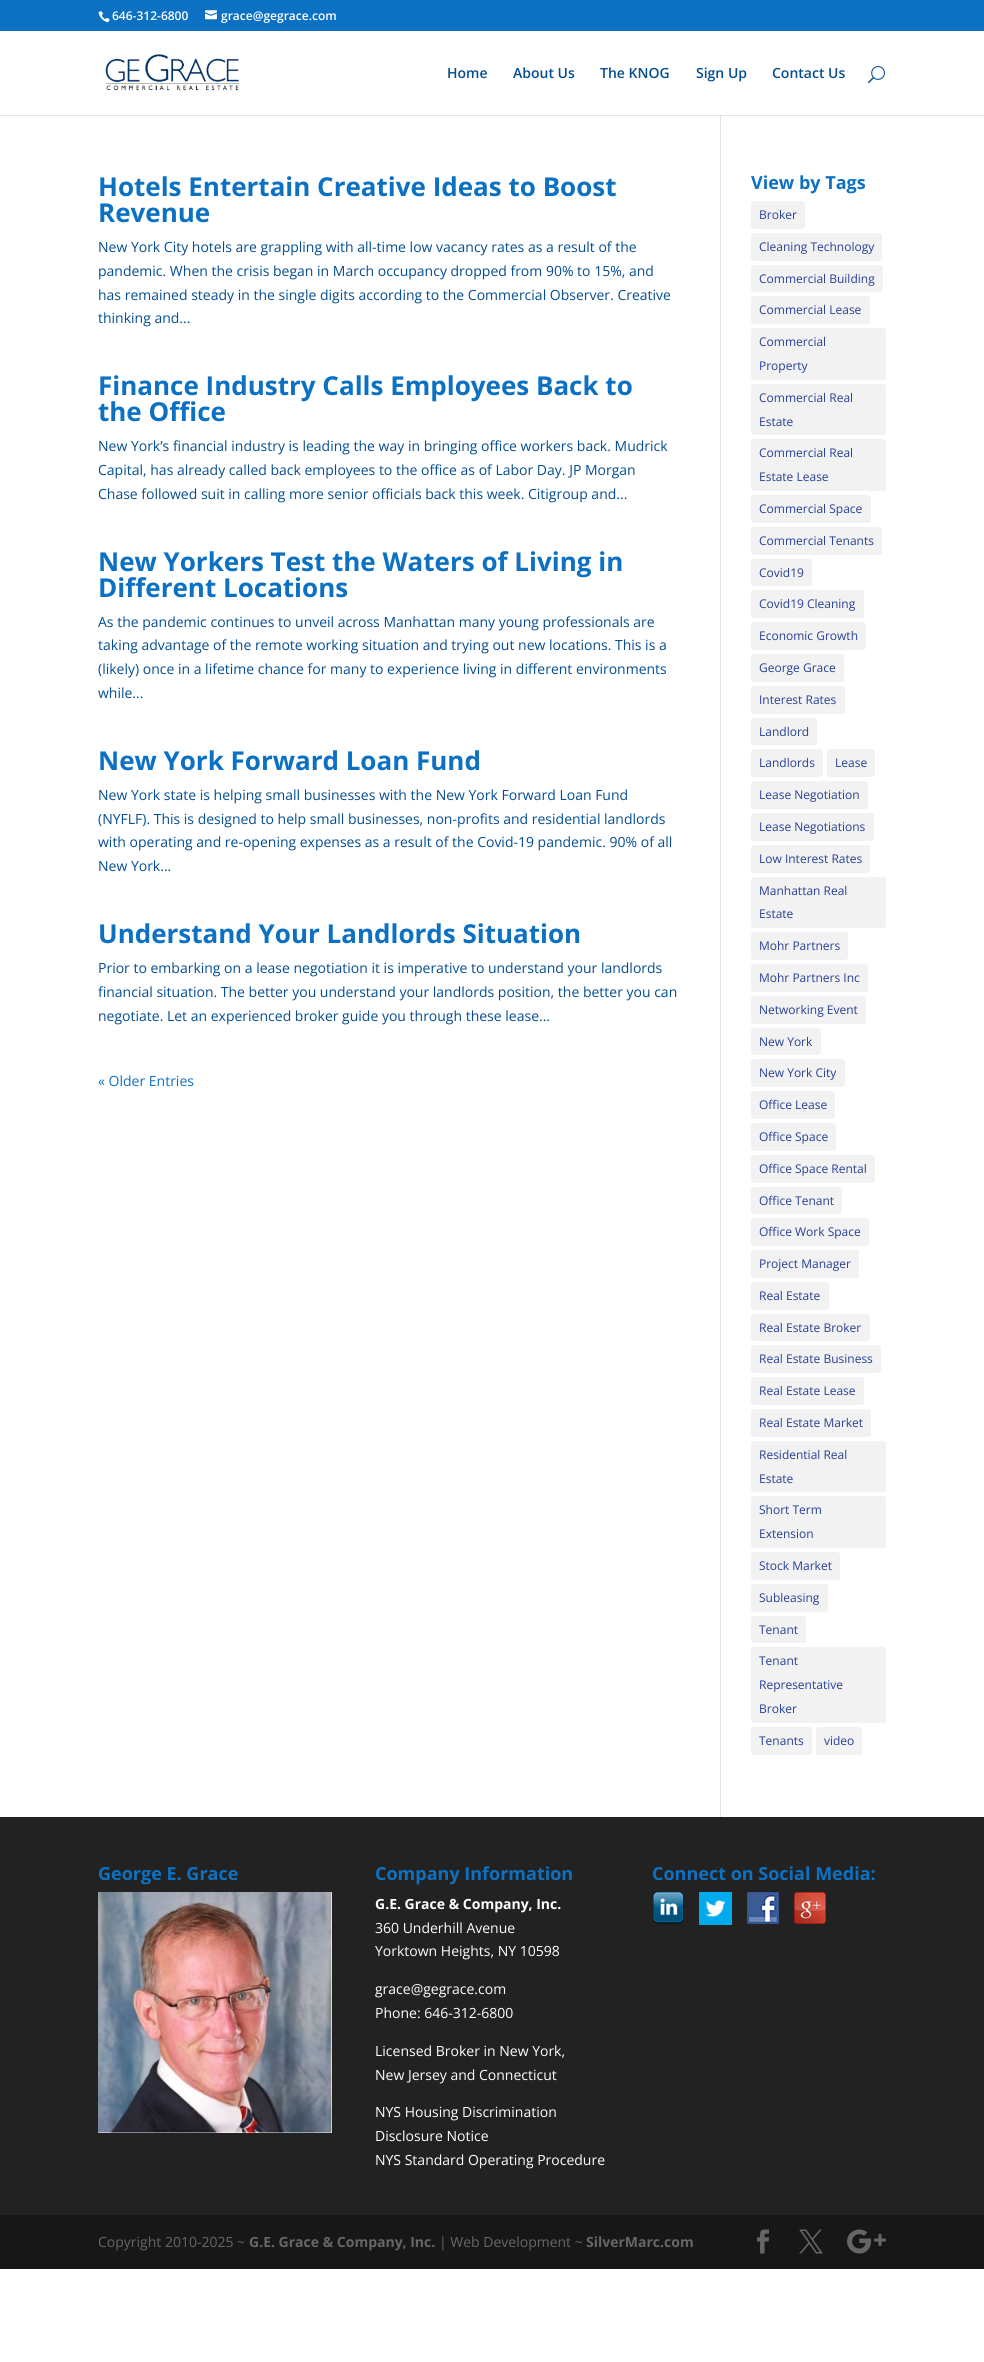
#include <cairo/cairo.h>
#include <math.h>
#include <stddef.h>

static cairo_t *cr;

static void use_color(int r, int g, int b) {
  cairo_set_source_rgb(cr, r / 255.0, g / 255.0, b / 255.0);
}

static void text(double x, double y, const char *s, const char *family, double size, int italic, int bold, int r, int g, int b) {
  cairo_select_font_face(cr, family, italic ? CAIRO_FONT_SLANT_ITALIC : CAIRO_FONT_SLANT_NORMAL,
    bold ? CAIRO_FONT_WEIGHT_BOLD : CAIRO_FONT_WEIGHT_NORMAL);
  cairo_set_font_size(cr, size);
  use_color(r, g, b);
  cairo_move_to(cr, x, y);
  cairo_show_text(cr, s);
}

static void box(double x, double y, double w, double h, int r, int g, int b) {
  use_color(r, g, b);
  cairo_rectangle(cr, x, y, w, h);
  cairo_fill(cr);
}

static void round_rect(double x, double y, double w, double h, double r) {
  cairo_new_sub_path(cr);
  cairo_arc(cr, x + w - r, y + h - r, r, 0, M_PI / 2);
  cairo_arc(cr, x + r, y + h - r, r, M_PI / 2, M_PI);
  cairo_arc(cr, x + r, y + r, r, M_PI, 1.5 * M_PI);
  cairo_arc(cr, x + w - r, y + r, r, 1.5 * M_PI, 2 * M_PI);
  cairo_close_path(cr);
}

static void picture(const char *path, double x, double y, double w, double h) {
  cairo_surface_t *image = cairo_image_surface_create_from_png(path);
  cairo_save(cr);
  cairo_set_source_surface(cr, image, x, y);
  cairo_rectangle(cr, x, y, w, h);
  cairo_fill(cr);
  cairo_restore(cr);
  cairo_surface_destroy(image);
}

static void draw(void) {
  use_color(255, 255, 255);
  cairo_paint(cr);
  box(0, 115, 984, 1, 230, 230, 230);
  box(0, 0, 984, 31, 12, 113, 195);
  picture("img_01.png", 98, 11, 12, 12);
  picture("img_02.png", 205, 10, 12, 10);
  picture("img_03.png", 105, 54, 135, 37);
  picture("img_04.png", 868, 66, 17, 18);
  box(720, 115, 1, 1702, 226, 226, 226);
  box(720, 115, 1, 1, 203, 203, 203);
  use_color(242, 242, 242);
  round_rect(751, 201, 54, 28, 3);
  cairo_fill(cr);
  round_rect(751, 233, 131, 28, 3);
  cairo_fill(cr);
  round_rect(751, 265, 132, 27, 3);
  cairo_fill(cr);
  round_rect(751, 296, 119, 28, 3);
  cairo_fill(cr);
  round_rect(751, 328, 135, 52, 3);
  cairo_fill(cr);
  round_rect(751, 384, 135, 51, 3);
  cairo_fill(cr);
  round_rect(751, 439, 135, 52, 3);
  cairo_fill(cr);
  round_rect(751, 495, 120, 28, 3);
  cairo_fill(cr);
  round_rect(751, 527, 131, 28, 3);
  cairo_fill(cr);
  round_rect(751, 559, 61, 27, 3);
  cairo_fill(cr);
  round_rect(751, 590, 113, 28, 3);
  cairo_fill(cr);
  round_rect(751, 622, 115, 28, 3);
  cairo_fill(cr);
  round_rect(751, 654, 93, 28, 3);
  cairo_fill(cr);
  round_rect(751, 686, 94, 28, 3);
  cairo_fill(cr);
  round_rect(751, 718, 66, 27, 3);
  cairo_fill(cr);
  round_rect(751, 749, 72, 28, 3);
  cairo_fill(cr);
  round_rect(827, 749, 48, 28, 3);
  cairo_fill(cr);
  round_rect(751, 781, 117, 28, 3);
  cairo_fill(cr);
  round_rect(751, 813, 123, 28, 3);
  cairo_fill(cr);
  round_rect(751, 845, 119, 28, 3);
  cairo_fill(cr);
  round_rect(751, 877, 135, 51, 3);
  cairo_fill(cr);
  round_rect(751, 932, 97, 28, 3);
  cairo_fill(cr);
  round_rect(751, 964, 117, 28, 3);
  cairo_fill(cr);
  round_rect(751, 996, 115, 28, 3);
  cairo_fill(cr);
  round_rect(751, 1028, 70, 27, 3);
  cairo_fill(cr);
  round_rect(751, 1059, 94, 28, 3);
  cairo_fill(cr);
  round_rect(751, 1091, 84, 28, 3);
  cairo_fill(cr);
  round_rect(751, 1123, 85, 28, 3);
  cairo_fill(cr);
  round_rect(751, 1155, 124, 28, 3);
  cairo_fill(cr);
  round_rect(751, 1187, 91, 27, 3);
  cairo_fill(cr);
  round_rect(751, 1218, 118, 28, 3);
  cairo_fill(cr);
  round_rect(751, 1250, 108, 28, 3);
  cairo_fill(cr);
  round_rect(751, 1282, 78, 28, 3);
  cairo_fill(cr);
  round_rect(751, 1314, 119, 27, 3);
  cairo_fill(cr);
  round_rect(751, 1345, 130, 28, 3);
  cairo_fill(cr);
  round_rect(751, 1377, 113, 28, 3);
  cairo_fill(cr);
  round_rect(751, 1409, 120, 28, 3);
  cairo_fill(cr);
  round_rect(751, 1441, 135, 51, 3);
  cairo_fill(cr);
  round_rect(751, 1496, 135, 52, 3);
  cairo_fill(cr);
  round_rect(751, 1552, 89, 28, 3);
  cairo_fill(cr);
  round_rect(751, 1584, 77, 28, 3);
  cairo_fill(cr);
  round_rect(751, 1616, 55, 27, 3);
  cairo_fill(cr);
  round_rect(751, 1647, 135, 76, 3);
  cairo_fill(cr);
  round_rect(751, 1727, 61, 28, 3);
  cairo_fill(cr);
  round_rect(816, 1727, 46, 28, 3);
  cairo_fill(cr);
  box(0, 1817, 984, 398, 34, 34, 34);
  picture("img_05.png", 98, 1892, 234, 241);
  picture("img_06.png", 653, 1892, 31, 32);
  picture("img_07.png", 699, 1892, 33, 33);
  picture("img_08.png", 747, 1892, 32, 32);
  picture("img_09.png", 794, 1892, 32, 32);
  box(0, 2215, 984, 54, 23, 23, 23);
  picture("img_10.png", 757, 2229, 12, 25);
  picture("img_11.png", 799, 2229, 24, 25);
  picture("img_12.png", 847, 2229, 39, 25);
  text(112, 20, "646-312-6800", "Open Sans SemiBold", 12, 0, 0, 255, 255, 255);
  text(221, 20, "grace@gegrace.com", "Open Sans SemiBold", 12, 0, 0, 255, 255, 255);
  text(447, 78, "Home", "Open Sans SemiBold", 14, 0, 0, 4, 77, 145);
  text(513, 78, "About Us", "Open Sans SemiBold", 14, 0, 0, 4, 77, 145);
  text(600, 78, "The KNOG", "Open Sans SemiBold", 14, 0, 0, 4, 77, 145);
  text(696, 78, "Sign Up", "Open Sans SemiBold", 14, 0, 0, 4, 77, 145);
  text(772, 78, "Contact Us", "Open Sans SemiBold", 14, 0, 0, 4, 77, 145);
  text(98, 196, "Hotels Entertain Creative Ideas to Boost", "Open Sans", 26, 0, 1, 12, 113, 195);
  text(98, 222, "Revenue", "Open Sans", 26, 0, 1, 12, 113, 195);
  text(98, 252, "New York City hotels are grappling with all-time low vacancy rates as a result of the", "Open Sans", 14, 0, 0, 4, 77, 145);
  text(98, 276, "pandemic. When the crisis began in March occupancy dropped from 90% to 15%, and", "Open Sans", 14, 0, 0, 4, 77, 145);
  text(98, 300, "has remained steady in the single digits according to the Commercial Observer. Creative", "Open Sans", 14, 0, 0, 4, 77, 145);
  text(98, 323, "thinking and...", "Open Sans", 14, 0, 0, 4, 77, 145);
  text(98, 395, "Finance Industry Calls Employees Back to", "Open Sans", 26, 0, 1, 12, 113, 195);
  text(98, 421, "the Office", "Open Sans", 26, 0, 1, 12, 113, 195);
  text(98, 451, "New York’s financial industry is leading the way in bringing office workers back. Mudrick", "Open Sans", 14, 0, 0, 4, 77, 145);
  text(98, 475, "Capital, has already called back employees to the office as of Labor Day. JP Morgan", "Open Sans", 14, 0, 0, 4, 77, 145);
  text(98, 499, "Chase followed suit in calling more senior officials back this week. Citigroup and...", "Open Sans", 14, 0, 0, 4, 77, 145);
  text(98, 571, "New Yorkers Test the Waters of Living in", "Open Sans", 26, 0, 1, 12, 113, 195);
  text(98, 597, "Different Locations", "Open Sans", 26, 0, 1, 12, 113, 195);
  text(98, 627, "As the pandemic continues to unveil across Manhattan many young professionals are", "Open Sans", 14, 0, 0, 4, 77, 145);
  text(98, 650, "taking advantage of the remote working situation and trying out new locations. This is a", "Open Sans", 14, 0, 0, 4, 77, 145);
  text(98, 674, "(likely) once in a lifetime chance for many to experience living in different environments", "Open Sans", 14, 0, 0, 4, 77, 145);
  text(98, 698, "while...", "Open Sans", 14, 0, 0, 4, 77, 145);
  text(98, 770, "New York Forward Loan Fund", "Open Sans", 26, 0, 1, 12, 113, 195);
  text(98, 800, "New York state is helping small businesses with the New York Forward Loan Fund", "Open Sans", 14, 0, 0, 4, 77, 145);
  text(98, 824, "(NYFLF). This is designed to help small businesses, non-profits and residential landlords", "Open Sans", 14, 0, 0, 4, 77, 145);
  text(98, 847, "with operating and re-opening expenses as a result of the Covid-19 pandemic. 90% of all", "Open Sans", 14, 0, 0, 4, 77, 145);
  text(98, 871, "New York...", "Open Sans", 14, 0, 0, 4, 77, 145);
  text(98, 943, "Understand Your Landlords Situation", "Open Sans", 26, 0, 1, 12, 113, 195);
  text(98, 973, "Prior to embarking on a lease negotiation it is imperative to understand your landlords", "Open Sans", 14, 0, 0, 4, 77, 145);
  text(98, 997, "financial situation. The better you understand your landlords position, the better you can", "Open Sans", 14, 0, 0, 4, 77, 145);
  text(98, 1021, "negotiate. Let an experienced broker guide you through these lease...", "Open Sans", 14, 0, 0, 4, 77, 145);
  text(98, 1086, "« Older Entries", "Open Sans", 14, 0, 0, 12, 113, 195);
  text(751, 189, "View by Tags", "Open Sans", 18, 0, 1, 12, 113, 195);
  text(759, 219, "Broker", "Open Sans", 12, 0, 0, 38, 64, 148);
  text(759, 251, "Cleaning Technology", "Open Sans", 12, 0, 0, 38, 64, 148);
  text(759, 283, "Commercial Building", "Open Sans", 12, 0, 0, 38, 64, 148);
  text(759, 314, "Commercial Lease", "Open Sans", 12, 0, 0, 38, 64, 148);
  text(759, 346, "Commercial", "Open Sans", 12, 0, 0, 38, 64, 148);
  text(759, 370, "Property", "Open Sans", 12, 0, 0, 38, 64, 148);
  text(759, 402, "Commercial Real", "Open Sans", 12, 0, 0, 38, 64, 148);
  text(759, 426, "Estate", "Open Sans", 12, 0, 0, 38, 64, 148);
  text(759, 457, "Commercial Real", "Open Sans", 12, 0, 0, 38, 64, 148);
  text(759, 481, "Estate Lease", "Open Sans", 12, 0, 0, 38, 64, 148);
  text(759, 513, "Commercial Space", "Open Sans", 12, 0, 0, 38, 64, 148);
  text(759, 545, "Commercial Tenants", "Open Sans", 12, 0, 0, 38, 64, 148);
  text(759, 577, "Covid19", "Open Sans", 12, 0, 0, 38, 64, 148);
  text(759, 608, "Covid19 Cleaning", "Open Sans", 12, 0, 0, 38, 64, 148);
  text(759, 640, "Economic Growth", "Open Sans", 12, 0, 0, 38, 64, 148);
  text(759, 672, "George Grace", "Open Sans", 12, 0, 0, 38, 64, 148);
  text(759, 704, "Interest Rates", "Open Sans", 12, 0, 0, 38, 64, 148);
  text(759, 736, "Landlord", "Open Sans", 12, 0, 0, 38, 64, 148);
  text(759, 767, "Landlords", "Open Sans", 12, 0, 0, 38, 64, 148);
  text(835, 767, "Lease", "Open Sans", 12, 0, 0, 38, 64, 148);
  text(759, 799, "Lease Negotiation", "Open Sans", 12, 0, 0, 38, 64, 148);
  text(759, 831, "Lease Negotiations", "Open Sans", 12, 0, 0, 38, 64, 148);
  text(759, 863, "Low Interest Rates", "Open Sans", 12, 0, 0, 38, 64, 148);
  text(759, 895, "Manhattan Real", "Open Sans", 12, 0, 0, 38, 64, 148);
  text(759, 918, "Estate", "Open Sans", 12, 0, 0, 38, 64, 148);
  text(759, 950, "Mohr Partners", "Open Sans", 12, 0, 0, 38, 64, 148);
  text(759, 982, "Mohr Partners Inc", "Open Sans", 12, 0, 0, 38, 64, 148);
  text(759, 1014, "Networking Event", "Open Sans", 12, 0, 0, 38, 64, 148);
  text(759, 1046, "New York", "Open Sans", 12, 0, 0, 38, 64, 148);
  text(759, 1077, "New York City", "Open Sans", 12, 0, 0, 38, 64, 148);
  text(759, 1109, "Office Lease", "Open Sans", 12, 0, 0, 38, 64, 148);
  text(759, 1141, "Office Space", "Open Sans", 12, 0, 0, 38, 64, 148);
  text(759, 1173, "Office Space Rental", "Open Sans", 12, 0, 0, 38, 64, 148);
  text(759, 1205, "Office Tenant", "Open Sans", 12, 0, 0, 38, 64, 148);
  text(759, 1236, "Office Work Space", "Open Sans", 12, 0, 0, 38, 64, 148);
  text(759, 1268, "Project Manager", "Open Sans", 12, 0, 0, 38, 64, 148);
  text(759, 1300, "Real Estate", "Open Sans", 12, 0, 0, 38, 64, 148);
  text(759, 1332, "Real Estate Broker", "Open Sans", 12, 0, 0, 38, 64, 148);
  text(759, 1363, "Real Estate Business", "Open Sans", 12, 0, 0, 38, 64, 148);
  text(759, 1395, "Real Estate Lease", "Open Sans", 12, 0, 0, 38, 64, 148);
  text(759, 1427, "Real Estate Market", "Open Sans", 12, 0, 0, 38, 64, 148);
  text(759, 1459, "Residential Real", "Open Sans", 12, 0, 0, 38, 64, 148);
  text(759, 1483, "Estate", "Open Sans", 12, 0, 0, 38, 64, 148);
  text(759, 1514, "Short Term", "Open Sans", 12, 0, 0, 38, 64, 148);
  text(759, 1538, "Extension", "Open Sans", 12, 0, 0, 38, 64, 148);
  text(759, 1570, "Stock Market", "Open Sans", 12, 0, 0, 38, 64, 148);
  text(759, 1602, "Subleasing", "Open Sans", 12, 0, 0, 38, 64, 148);
  text(759, 1634, "Tenant", "Open Sans", 12, 0, 0, 38, 64, 148);
  text(759, 1665, "Tenant", "Open Sans", 12, 0, 0, 38, 64, 148);
  text(759, 1689, "Representative", "Open Sans", 12, 0, 0, 38, 64, 148);
  text(759, 1713, "Broker", "Open Sans", 12, 0, 0, 38, 64, 148);
  text(759, 1745, "Tenants", "Open Sans", 12, 0, 0, 38, 64, 148);
  text(824, 1745, "video", "Open Sans", 12, 0, 0, 38, 64, 148);
  text(98, 1880, "George E. Grace", "Open Sans", 18, 0, 1, 12, 113, 195);
  text(375, 1880, "Company Information", "Open Sans", 18, 0, 1, 12, 113, 195);
  text(375, 1909, "G.E. Grace & Company, Inc.", "Open Sans", 14, 0, 1, 255, 255, 255);
  text(375, 1933, "360 Underhill Avenue", "Open Sans", 14, 0, 0, 255, 255, 255);
  text(375, 1956, "Yorktown Heights, NY 10598", "Open Sans", 14, 0, 0, 255, 255, 255);
  text(375, 1994, "grace@gegrace.com", "Open Sans", 14, 0, 0, 255, 255, 255);
  text(375, 2018, "Phone: 646-312-6800", "Open Sans", 14, 0, 0, 255, 255, 255);
  text(375, 2056, "Licensed Broker in New York,", "Open Sans", 14, 0, 0, 255, 255, 255);
  text(375, 2080, "New Jersey and Connecticut", "Open Sans", 14, 0, 0, 255, 255, 255);
  text(375, 2117, "NYS Housing Discrimination", "Open Sans", 14, 0, 0, 255, 255, 255);
  text(375, 2141, "Disclosure Notice", "Open Sans", 14, 0, 0, 255, 255, 255);
  text(375, 2165, "NYS Standard Operating Procedure", "Open Sans", 14, 0, 0, 255, 255, 255);
  text(652, 1880, "Connect on Social Media:", "Open Sans", 18, 0, 1, 12, 113, 195);
  text(98, 2247, "Copyright 2010-2025 ~", "Open Sans", 14, 0, 0, 102, 102, 102);
  text(249, 2247, "G.E. Grace & Company, Inc.", "Open Sans", 14, 0, 1, 102, 102, 102);
  text(439, 2247, "| Web Development ~", "Open Sans", 14, 0, 0, 102, 102, 102);
  text(586, 2247, "SilverMarc.com", "Open Sans", 14, 0, 1, 102, 102, 102);
}

int main(void) {
  cairo_surface_t *surface = cairo_image_surface_create(CAIRO_FORMAT_RGB24, 984, 2362);
  cr = cairo_create(surface);
  cairo_font_options_t *options = cairo_font_options_create();
  cairo_font_options_set_hint_metrics(options, CAIRO_HINT_METRICS_OFF);
  cairo_font_options_set_hint_style(options, CAIRO_HINT_STYLE_NONE);
  cairo_set_font_options(cr, options);
  cairo_set_miter_limit(cr, 4);
  draw();
  cairo_surface_write_to_png(surface, "out.png");
  cairo_font_options_destroy(options);
  cairo_destroy(cr);
  cairo_surface_destroy(surface);
  return 0;
}
